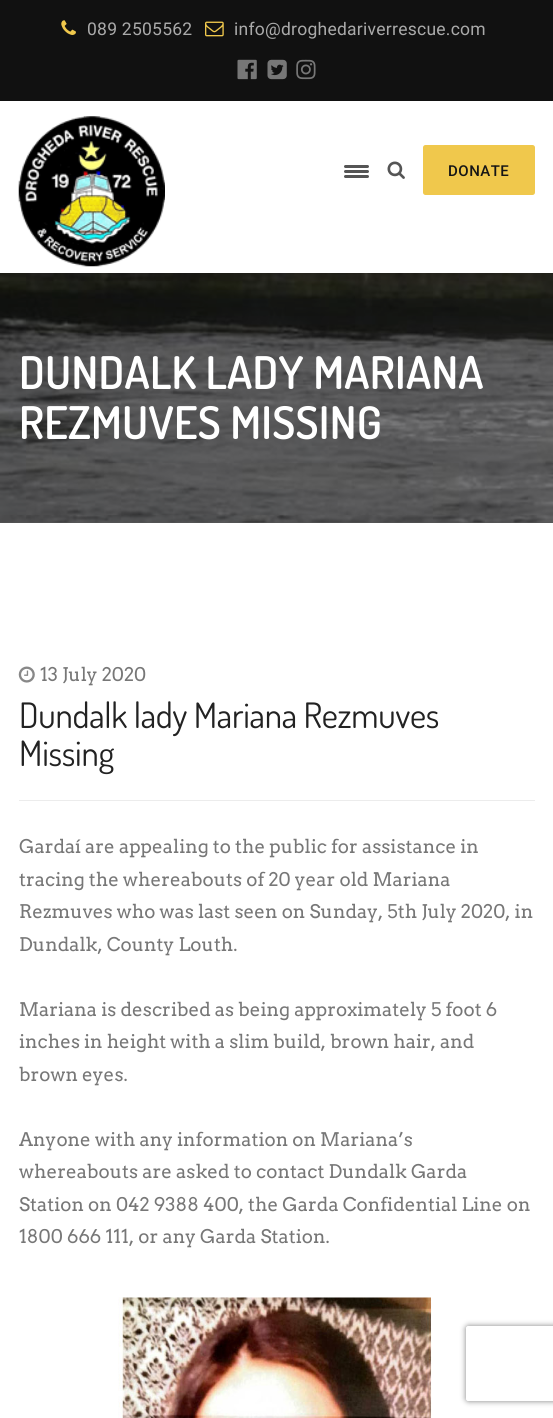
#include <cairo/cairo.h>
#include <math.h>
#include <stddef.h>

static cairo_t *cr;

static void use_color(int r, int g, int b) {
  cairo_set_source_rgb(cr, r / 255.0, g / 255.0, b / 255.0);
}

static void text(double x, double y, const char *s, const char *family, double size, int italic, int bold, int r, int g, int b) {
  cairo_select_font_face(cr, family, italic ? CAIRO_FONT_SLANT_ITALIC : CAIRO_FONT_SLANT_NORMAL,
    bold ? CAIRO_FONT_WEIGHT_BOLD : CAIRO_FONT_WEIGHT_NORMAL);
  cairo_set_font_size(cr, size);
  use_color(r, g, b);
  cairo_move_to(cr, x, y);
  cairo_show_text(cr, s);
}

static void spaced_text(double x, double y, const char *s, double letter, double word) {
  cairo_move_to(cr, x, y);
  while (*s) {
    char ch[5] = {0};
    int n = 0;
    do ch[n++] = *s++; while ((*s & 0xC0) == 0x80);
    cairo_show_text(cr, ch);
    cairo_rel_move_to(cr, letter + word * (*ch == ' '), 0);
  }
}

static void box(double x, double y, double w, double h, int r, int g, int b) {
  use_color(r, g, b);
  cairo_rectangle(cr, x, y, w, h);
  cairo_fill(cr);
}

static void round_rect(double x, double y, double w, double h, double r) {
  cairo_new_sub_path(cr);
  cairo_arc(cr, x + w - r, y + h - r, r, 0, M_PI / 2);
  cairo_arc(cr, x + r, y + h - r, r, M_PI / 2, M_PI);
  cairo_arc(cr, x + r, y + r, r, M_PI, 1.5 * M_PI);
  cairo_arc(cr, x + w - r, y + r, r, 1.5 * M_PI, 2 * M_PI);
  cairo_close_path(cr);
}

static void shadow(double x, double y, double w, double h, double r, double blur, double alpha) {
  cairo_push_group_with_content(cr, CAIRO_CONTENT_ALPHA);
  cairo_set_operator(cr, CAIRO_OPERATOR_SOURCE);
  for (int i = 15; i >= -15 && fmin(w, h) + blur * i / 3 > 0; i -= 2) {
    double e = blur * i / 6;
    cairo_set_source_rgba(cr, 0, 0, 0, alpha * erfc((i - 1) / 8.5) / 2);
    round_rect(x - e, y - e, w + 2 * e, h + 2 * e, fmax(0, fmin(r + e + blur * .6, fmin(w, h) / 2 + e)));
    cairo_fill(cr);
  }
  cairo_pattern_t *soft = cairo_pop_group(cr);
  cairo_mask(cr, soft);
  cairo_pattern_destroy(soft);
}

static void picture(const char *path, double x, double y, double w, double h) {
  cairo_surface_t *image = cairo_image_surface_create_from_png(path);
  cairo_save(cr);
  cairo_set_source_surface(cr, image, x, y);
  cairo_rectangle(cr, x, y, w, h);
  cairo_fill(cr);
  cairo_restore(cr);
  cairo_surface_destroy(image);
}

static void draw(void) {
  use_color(255, 255, 255);
  cairo_paint(cr);
  box(0, 0, 553, 101, 17, 17, 17);
  picture("img_01.png", 61, 20, 15, 15);
  picture("img_02.png", 205, 21, 19, 16);
  picture("img_03.png", 237, 59, 20, 21);
  picture("img_04.png", 267, 59, 20, 21);
  picture("img_05.png", 296, 59, 20, 21);
  picture("img_06.png", 18, 116, 147, 151);
  use_color(85, 85, 85);
  round_rect(344, 165, 25, 3, 1.5);
  cairo_fill(cr);
  round_rect(344, 170, 25, 3, 1.5);
  cairo_fill(cr);
  round_rect(344, 175, 25, 3, 1.5);
  cairo_fill(cr);
  picture("img_07.png", 387, 161, 18, 18);
  use_color(240, 200, 76);
  round_rect(423, 145, 112, 50, 2.5);
  cairo_fill(cr);
  box(0, 522, 553, 1, 87, 87, 87);
  picture("img_08.png", 0, 273, 553, 250);
  box(19, 800, 516, 1, 236, 236, 236);
  picture("img_09.png", 18, 666, 17, 17);
  picture("img_10.png", 118, 1297, 314, 121);
  cairo_save(cr);
  cairo_set_fill_rule(cr, CAIRO_FILL_RULE_EVEN_ODD);
  cairo_new_path(cr);
  cairo_move_to(cr, 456, 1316);
  cairo_line_to(cr, 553, 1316);
  cairo_line_to(cr, 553, 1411);
  cairo_line_to(cr, 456, 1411);
  cairo_close_path(cr);
  cairo_move_to(cr, 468.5, 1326);
  cairo_line_to(cr, 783.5, 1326);
  cairo_curve_to(cr, 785, 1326, 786, 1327, 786, 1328.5);
  cairo_line_to(cr, 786, 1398.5);
  cairo_curve_to(cr, 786, 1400, 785, 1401, 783.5, 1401);
  cairo_line_to(cr, 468.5, 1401);
  cairo_curve_to(cr, 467, 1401, 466, 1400, 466, 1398.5);
  cairo_line_to(cr, 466, 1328.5);
  cairo_curve_to(cr, 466, 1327, 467, 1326, 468.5, 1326);
  cairo_close_path(cr);
  cairo_clip(cr);
  use_color(128, 128, 128);
  shadow(466, 1326, 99, 75, 2.5, 3, 1);
  cairo_restore(cr);
  cairo_select_font_face(cr, "Roboto", CAIRO_FONT_SLANT_NORMAL, CAIRO_FONT_WEIGHT_NORMAL);
  cairo_set_font_size(cr, 17.5);
  use_color(170, 170, 170);
  spaced_text(87, 35, "089 2505562", 0.25, 0);
  spaced_text(234, 35, "info@droghedariverrescue.com", 0.25, 0);
  cairo_select_font_face(cr, "Roboto Medium", CAIRO_FONT_SLANT_NORMAL, CAIRO_FONT_WEIGHT_NORMAL);
  cairo_set_font_size(cr, 15);
  use_color(21, 21, 21);
  spaced_text(448, 176, "DONATE", 0.5, 0);
  cairo_select_font_face(cr, "Dosis SemiBold", CAIRO_FONT_SLANT_NORMAL, CAIRO_FONT_WEIGHT_NORMAL);
  cairo_set_font_size(cr, 45);
  use_color(255, 255, 255);
  spaced_text(19, 389, "DUNDALK LADY MARIANA", 0.25, 0);
  spaced_text(19, 439, "REZMUVES MISSING", 0.25, 0);
  text(40, 681, "13 July 2020", "Arvo", 18.75, 0, 0, 119, 119, 119);
  cairo_select_font_face(cr, "Dosis", CAIRO_FONT_SLANT_NORMAL, CAIRO_FONT_WEIGHT_NORMAL);
  cairo_set_font_size(cr, 35);
  use_color(34, 34, 34);
  spaced_text(19, 728, "Dundalk lady Mariana Rezmuves", -0.25, 0);
  spaced_text(19, 766, "Missing", -0.25, 0);
  text(19, 853, "Gardaí are appealing to the public for assistance in", "Arvo", 18.75, 0, 0, 119, 119, 119);
  text(19, 886, "tracing the whereabouts of 20 year old Mariana", "Arvo", 18.75, 0, 0, 119, 119, 119);
  text(19, 918, "Rezmuves who was last seen on Sunday, 5th July 2020, in", "Arvo", 18.75, 0, 0, 119, 119, 119);
  text(19, 951, "Dundalk, County Louth.", "Arvo", 18.75, 0, 0, 119, 119, 119);
  text(19, 1016, "Mariana is described as being approximately 5 foot 6", "Arvo", 18.75, 0, 0, 119, 119, 119);
  text(19, 1048, "inches in height with a slim build, brown hair, and", "Arvo", 18.75, 0, 0, 119, 119, 119);
  text(19, 1081, "brown eyes.", "Arvo", 18.75, 0, 0, 119, 119, 119);
  text(19, 1146, "Anyone with any information on Mariana’s", "Arvo", 18.75, 0, 0, 119, 119, 119);
  text(19, 1178, "whereabouts are asked to contact Dundalk Garda", "Arvo", 18.75, 0, 0, 119, 119, 119);
  text(19, 1211, "Station on 042 9388 400, the Garda Confidential Line on", "Arvo", 18.75, 0, 0, 119, 119, 119);
  text(19, 1243, "1800 666 111, or any Garda Station.", "Arvo", 18.75, 0, 0, 119, 119, 119);
}

int main(void) {
  cairo_surface_t *surface = cairo_image_surface_create(CAIRO_FORMAT_RGB24, 553, 1418);
  cr = cairo_create(surface);
  cairo_font_options_t *options = cairo_font_options_create();
  cairo_font_options_set_hint_metrics(options, CAIRO_HINT_METRICS_OFF);
  cairo_font_options_set_hint_style(options, CAIRO_HINT_STYLE_NONE);
  cairo_set_font_options(cr, options);
  cairo_set_miter_limit(cr, 4);
  draw();
  cairo_surface_write_to_png(surface, "out.png");
  cairo_font_options_destroy(options);
  cairo_destroy(cr);
  cairo_surface_destroy(surface);
  return 0;
}
